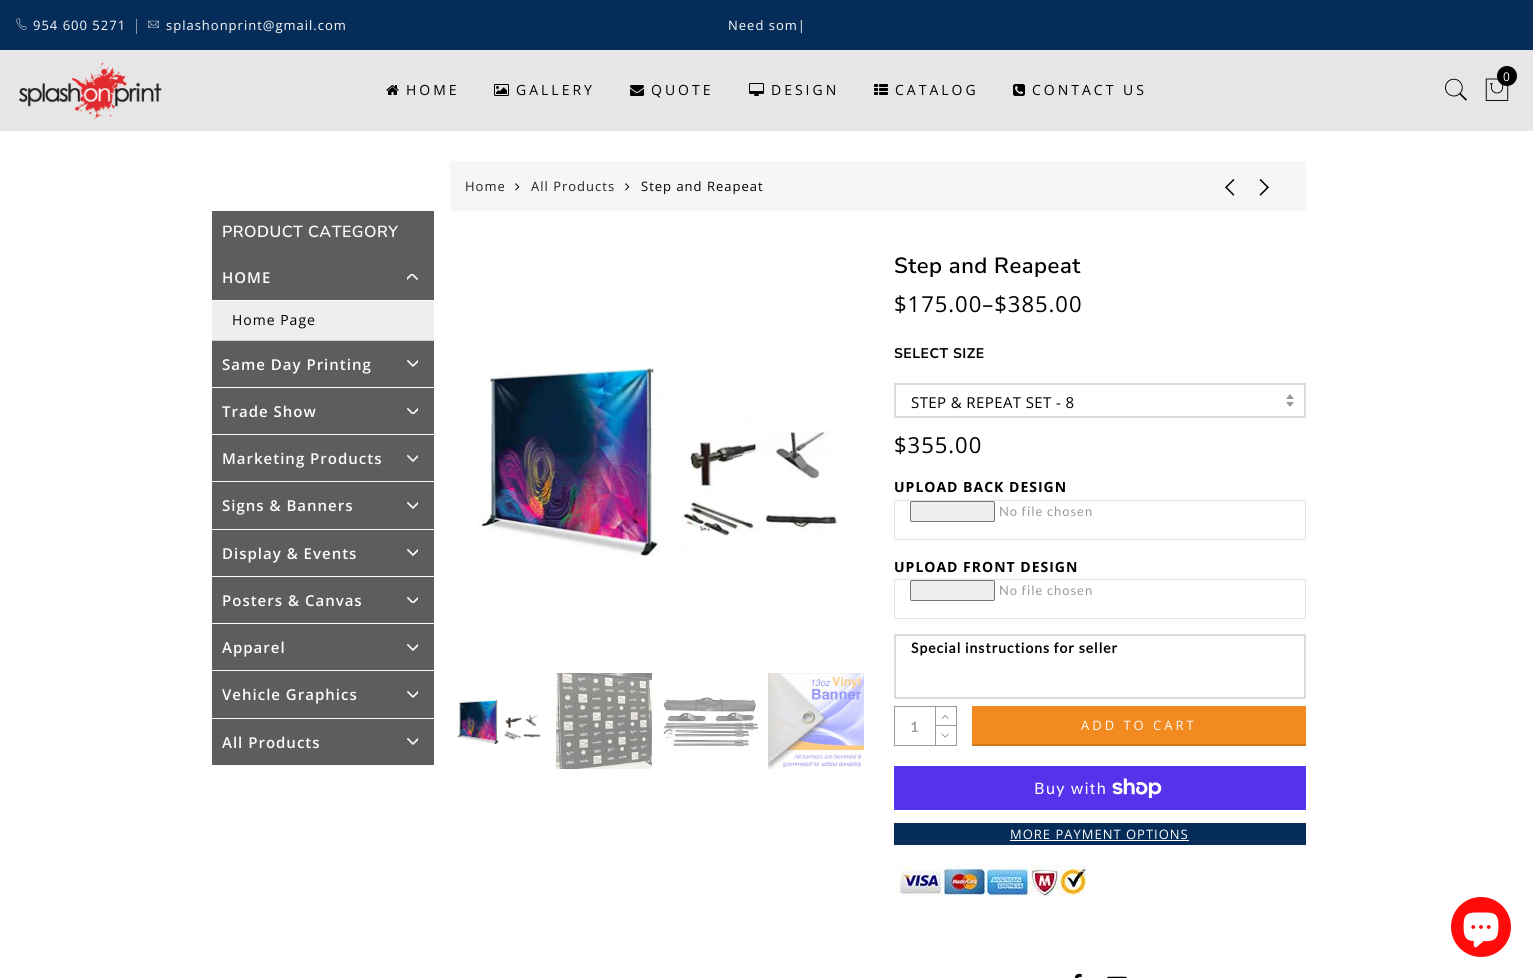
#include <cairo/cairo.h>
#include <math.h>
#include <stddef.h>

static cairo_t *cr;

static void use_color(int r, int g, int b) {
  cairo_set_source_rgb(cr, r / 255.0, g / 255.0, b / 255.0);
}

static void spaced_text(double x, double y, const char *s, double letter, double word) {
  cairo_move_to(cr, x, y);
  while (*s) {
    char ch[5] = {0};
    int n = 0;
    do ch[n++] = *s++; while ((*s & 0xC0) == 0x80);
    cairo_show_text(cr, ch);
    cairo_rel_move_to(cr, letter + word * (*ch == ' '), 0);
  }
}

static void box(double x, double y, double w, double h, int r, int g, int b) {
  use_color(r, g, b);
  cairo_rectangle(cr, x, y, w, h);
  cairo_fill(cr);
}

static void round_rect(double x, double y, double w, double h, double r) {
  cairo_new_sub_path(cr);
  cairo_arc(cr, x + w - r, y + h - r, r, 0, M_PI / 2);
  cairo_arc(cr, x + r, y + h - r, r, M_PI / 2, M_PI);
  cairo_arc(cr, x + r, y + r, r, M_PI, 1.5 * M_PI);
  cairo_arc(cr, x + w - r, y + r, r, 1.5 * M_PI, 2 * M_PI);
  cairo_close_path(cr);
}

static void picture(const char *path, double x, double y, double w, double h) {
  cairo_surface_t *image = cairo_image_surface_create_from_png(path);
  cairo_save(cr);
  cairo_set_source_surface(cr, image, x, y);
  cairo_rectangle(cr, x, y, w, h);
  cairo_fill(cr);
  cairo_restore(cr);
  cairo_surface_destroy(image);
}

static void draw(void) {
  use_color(255, 255, 255);
  cairo_paint(cr);
  box(0, 0, 1533, 50, 6, 45, 89);
  picture("img_01.png", 16, 18, 11, 13);
  box(136, 19, 1, 15, 131, 150, 172);
  picture("img_02.png", 148, 20, 11, 8);
  box(0, 50, 1533, 81, 230, 230, 230);
  picture("img_03.png", 18, 62, 144, 58);
  picture("img_04.png", 1485, 78, 24, 23);
  use_color(0, 0, 0);
  cairo_arc(cr, 1507, 76, 10, 0, 2 * M_PI);
  cairo_fill(cr);
  picture("img_05.png", 1445, 78, 22, 23);
  picture("img_06.png", 386, 85, 13, 10);
  picture("img_07.png", 494, 84, 15, 12);
  picture("img_08.png", 630, 85, 14, 11);
  picture("img_09.png", 749, 83, 15, 13);
  picture("img_10.png", 874, 84, 14, 11);
  picture("img_11.png", 1013, 84, 12, 12);
  box(212, 301, 222, 39, 238, 238, 238);
  box(212, 211, 222, 89, 94, 92, 92);
  box(212, 300, 222, 1, 252, 252, 252);
  picture("img_12.png", 407, 274, 11, 6);
  box(212, 340, 222, 1, 204, 204, 204);
  box(212, 341, 222, 46, 94, 92, 92);
  box(212, 387, 222, 1, 252, 252, 252);
  picture("img_13.png", 407, 360, 11, 7);
  box(212, 388, 222, 46, 94, 92, 92);
  box(212, 434, 222, 1, 252, 252, 252);
  picture("img_14.png", 407, 408, 11, 6);
  box(212, 435, 222, 46, 94, 92, 92);
  box(212, 481, 222, 1, 252, 252, 252);
  picture("img_13.png", 407, 455, 11, 7);
  box(212, 482, 222, 47, 94, 92, 92);
  box(212, 529, 222, 1, 252, 252, 252);
  picture("img_13.png", 407, 502, 11, 7);
  box(212, 530, 222, 46, 94, 92, 92);
  box(212, 576, 222, 1, 252, 252, 252);
  picture("img_13.png", 407, 549, 11, 7);
  box(212, 577, 222, 46, 94, 92, 92);
  box(212, 623, 222, 1, 252, 252, 252);
  picture("img_14.png", 407, 597, 11, 6);
  box(212, 624, 222, 46, 94, 92, 92);
  box(212, 670, 222, 1, 252, 252, 252);
  picture("img_13.png", 407, 644, 11, 7);
  box(212, 671, 222, 47, 94, 92, 92);
  box(212, 718, 222, 1, 252, 252, 252);
  picture("img_13.png", 407, 691, 11, 7);
  box(212, 719, 222, 46, 94, 92, 92);
  box(212, 765, 222, 1, 252, 252, 252);
  picture("img_13.png", 407, 738, 11, 7);
  box(450, 161, 856, 50, 246, 246, 248);
  picture("img_15.png", 515, 183, 5, 8);
  picture("img_15.png", 625, 183, 5, 8);
  picture("img_16.png", 1225, 179, 10, 17);
  picture("img_17.png", 1259, 179, 10, 17);
  picture("img_18.png", 478, 366, 360, 190);
  picture("img_19.png", 456, 699, 85, 46);
  picture("img_20.png", 556, 673, 96, 96);
  picture("img_21.png", 663, 697, 95, 50);
  picture("img_22.png", 768, 673, 96, 96);
  picture("img_23.png", 1286, 394, 8, 13);
  cairo_rectangle(cr, 895, 384, 410, 33);
  use_color(220, 220, 220);
  cairo_stroke(cr);
  cairo_rectangle(cr, 894.5, 500.5, 411, 39);
  use_color(227, 227, 227);
  cairo_set_line_width(cr, 1);
  cairo_stroke(cr);
  use_color(239, 239, 239);
  round_rect(910.5, 501.5, 84, 20, 1.5);
  cairo_fill_preserve(cr);
  use_color(118, 118, 118);
  cairo_stroke(cr);
  cairo_rectangle(cr, 894.5, 579.5, 411, 39);
  use_color(227, 227, 227);
  cairo_stroke(cr);
  use_color(239, 239, 239);
  round_rect(910.5, 580.5, 84, 20, 1.5);
  cairo_fill_preserve(cr);
  use_color(118, 118, 118);
  cairo_stroke(cr);
  cairo_rectangle(cr, 895, 635, 410, 63);
  use_color(220, 220, 220);
  cairo_set_line_width(cr, 2);
  cairo_stroke(cr);
  cairo_rectangle(cr, 894.5, 706.5, 62, 39);
  use_color(153, 153, 153);
  cairo_set_line_width(cr, 1);
  cairo_stroke(cr);
  box(935, 707, 1, 39, 153, 153, 153);
  box(936, 725, 20, 1, 153, 153, 153);
  picture("img_24.png", 941, 714, 8, 5);
  picture("img_25.png", 941, 733, 8, 5);
  box(972, 706, 334, 38, 243, 138, 31);
  box(972, 744, 334, 2, 207, 117, 26);
  box(894, 766, 412, 44, 84, 51, 235);
  picture("img_26.png", 1112, 778, 50, 20);
  box(894, 823, 412, 22, 6, 45, 89);
  box(1010, 840, 179, 1, 255, 255, 255);
  picture("img_27.png", 894, 865, 192, 32);
  picture("img_28.png", 1074, 973, 8, 5);
  picture("img_29.png", 1107, 976, 20, 2);
  use_color(255, 11, 11);
  cairo_arc(cr, 1481, 927, 30, 0, 2 * M_PI);
  cairo_fill(cr);
  picture("img_30.png", 1463, 912, 36, 36);
  cairo_select_font_face(cr, "Open Sans", CAIRO_FONT_SLANT_NORMAL, CAIRO_FONT_WEIGHT_NORMAL);
  cairo_set_font_size(cr, 13);
  use_color(252, 252, 252);
  spaced_text(33, 30, "954 600 5271", 1, 0);
  spaced_text(166, 30, "splashonprint@gmail.com", 1, 0);
  spaced_text(728, 30, "Need som|", 1, 0);
  cairo_set_font_size(cr, 12);
  spaced_text(1503, 81, "0", 1, 0);
  cairo_set_font_size(cr, 14);
  use_color(0, 0, 0);
  spaced_text(406, 95, "HOME", 3, 0);
  spaced_text(516, 95, "GALLERY", 3, 0);
  spaced_text(651, 95, "QUOTE", 3, 0);
  spaced_text(771, 95, "DESIGN", 3, 0);
  spaced_text(895, 95, "CATALOG", 3, 0);
  spaced_text(1032, 95, "CONTACT US", 3, 0);
  cairo_select_font_face(cr, "Nunito Sans SemiBold", CAIRO_FONT_SLANT_NORMAL, CAIRO_FONT_WEIGHT_NORMAL);
  cairo_set_font_size(cr, 16);
  use_color(252, 252, 252);
  spaced_text(222, 237, "PRODUCT CATEGORY", 0.5, 0);
  cairo_select_font_face(cr, "Open Sans SemiBold", CAIRO_FONT_SLANT_NORMAL, CAIRO_FONT_WEIGHT_NORMAL);
  cairo_set_font_size(cr, 15);
  spaced_text(222, 283, "HOME", 1, 0);
  cairo_select_font_face(cr, "Open Sans", CAIRO_FONT_SLANT_NORMAL, CAIRO_FONT_WEIGHT_NORMAL);
  cairo_set_font_size(cr, 14);
  use_color(0, 0, 0);
  spaced_text(232, 325, "Home Page", 1, 0);
  cairo_select_font_face(cr, "Open Sans SemiBold", CAIRO_FONT_SLANT_NORMAL, CAIRO_FONT_WEIGHT_NORMAL);
  cairo_set_font_size(cr, 15);
  use_color(252, 252, 252);
  spaced_text(222, 370, "Same Day Printing", 1, 0);
  spaced_text(222, 417, "Trade Show", 1, 0);
  spaced_text(222, 464, "Marketing Products", 1, 0);
  spaced_text(222, 511, "Signs & Banners", 1, 0);
  spaced_text(222, 559, "Display & Events", 1, 0);
  spaced_text(222, 606, "Posters & Canvas", 1, 0);
  spaced_text(222, 653, "Apparel", 1, 0);
  spaced_text(222, 700, "Vehicle Graphics", 1, 0);
  spaced_text(222, 748, "All Products", 1, 0);
  cairo_select_font_face(cr, "Open Sans", CAIRO_FONT_SLANT_NORMAL, CAIRO_FONT_WEIGHT_NORMAL);
  cairo_set_font_size(cr, 13);
  use_color(34, 34, 34);
  spaced_text(465, 191, "Home", 1, 0);
  spaced_text(531, 191, "All Products", 1, 0);
  use_color(0, 0, 0);
  spaced_text(641, 191, "Step and Reapeat", 1, 0);
  cairo_select_font_face(cr, "Nunito Sans SemiBold", CAIRO_FONT_SLANT_NORMAL, CAIRO_FONT_WEIGHT_NORMAL);
  cairo_set_font_size(cr, 22);
  spaced_text(894, 273, "Step and Reapeat", 0.5, 0);
  cairo_select_font_face(cr, "Open Sans", CAIRO_FONT_SLANT_NORMAL, CAIRO_FONT_WEIGHT_NORMAL);
  spaced_text(894, 312, "$175.00–$385.00", 1, 0);
  cairo_select_font_face(cr, "Nunito Sans", CAIRO_FONT_SLANT_NORMAL, CAIRO_FONT_WEIGHT_BOLD);
  cairo_set_font_size(cr, 14);
  spaced_text(894, 358, "SELECT SIZE", 0.5, 0);
  cairo_select_font_face(cr, "Open Sans", CAIRO_FONT_SLANT_NORMAL, CAIRO_FONT_WEIGHT_NORMAL);
  cairo_set_font_size(cr, 15);
  spaced_text(911, 408, "STEP & REPEAT SET - 8", 0.4, 0);
  cairo_set_font_size(cr, 22);
  spaced_text(894, 453, "$355.00", 1, 0);
  cairo_select_font_face(cr, "Open Sans", CAIRO_FONT_SLANT_NORMAL, CAIRO_FONT_WEIGHT_BOLD);
  cairo_set_font_size(cr, 14);
  spaced_text(894, 492, "UPLOAD BACK DESIGN", 1, 0);
  cairo_select_font_face(cr, "Lato", CAIRO_FONT_SLANT_NORMAL, CAIRO_FONT_WEIGHT_NORMAL);
  cairo_set_font_size(cr, 13);
  use_color(153, 153, 153);
  spaced_text(999, 516, "No file chosen", 1, 0);
  cairo_select_font_face(cr, "Open Sans", CAIRO_FONT_SLANT_NORMAL, CAIRO_FONT_WEIGHT_BOLD);
  cairo_set_font_size(cr, 14);
  use_color(0, 0, 0);
  spaced_text(894, 572, "UPLOAD FRONT DESIGN", 1, 0);
  cairo_select_font_face(cr, "Lato", CAIRO_FONT_SLANT_NORMAL, CAIRO_FONT_WEIGHT_NORMAL);
  cairo_set_font_size(cr, 13);
  use_color(153, 153, 153);
  spaced_text(999, 595, "No file chosen", 1, 0);
  cairo_select_font_face(cr, "Lato", CAIRO_FONT_SLANT_NORMAL, CAIRO_FONT_WEIGHT_BOLD);
  cairo_set_font_size(cr, 14);
  use_color(0, 0, 0);
  spaced_text(911, 653, "Special instructions for seller", 1, 0);
  use_color(153, 153, 153);
  spaced_text(910, 732, "1", 1, 0);
  cairo_select_font_face(cr, "Open Sans", CAIRO_FONT_SLANT_NORMAL, CAIRO_FONT_WEIGHT_NORMAL);
  cairo_set_font_size(cr, 13);
  use_color(252, 252, 252);
  spaced_text(1081, 730, "ADD TO CART", 3, 0);
  cairo_select_font_face(cr, "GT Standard", CAIRO_FONT_SLANT_NORMAL, CAIRO_FONT_WEIGHT_NORMAL);
  cairo_set_font_size(cr, 16);
  spaced_text(1034, 794, "Buy with", 1, 0);
  cairo_select_font_face(cr, "Open Sans", CAIRO_FONT_SLANT_NORMAL, CAIRO_FONT_WEIGHT_NORMAL);
  cairo_set_font_size(cr, 13);
  spaced_text(1010, 839, "MORE PAYMENT OPTIONS", 1, 0);
}

int main(void) {
  cairo_surface_t *surface = cairo_image_surface_create(CAIRO_FORMAT_RGB24, 1533, 978);
  cr = cairo_create(surface);
  cairo_font_options_t *options = cairo_font_options_create();
  cairo_font_options_set_hint_metrics(options, CAIRO_HINT_METRICS_OFF);
  cairo_font_options_set_hint_style(options, CAIRO_HINT_STYLE_NONE);
  cairo_set_font_options(cr, options);
  cairo_set_miter_limit(cr, 4);
  draw();
  cairo_surface_write_to_png(surface, "out.png");
  cairo_font_options_destroy(options);
  cairo_destroy(cr);
  cairo_surface_destroy(surface);
  return 0;
}
